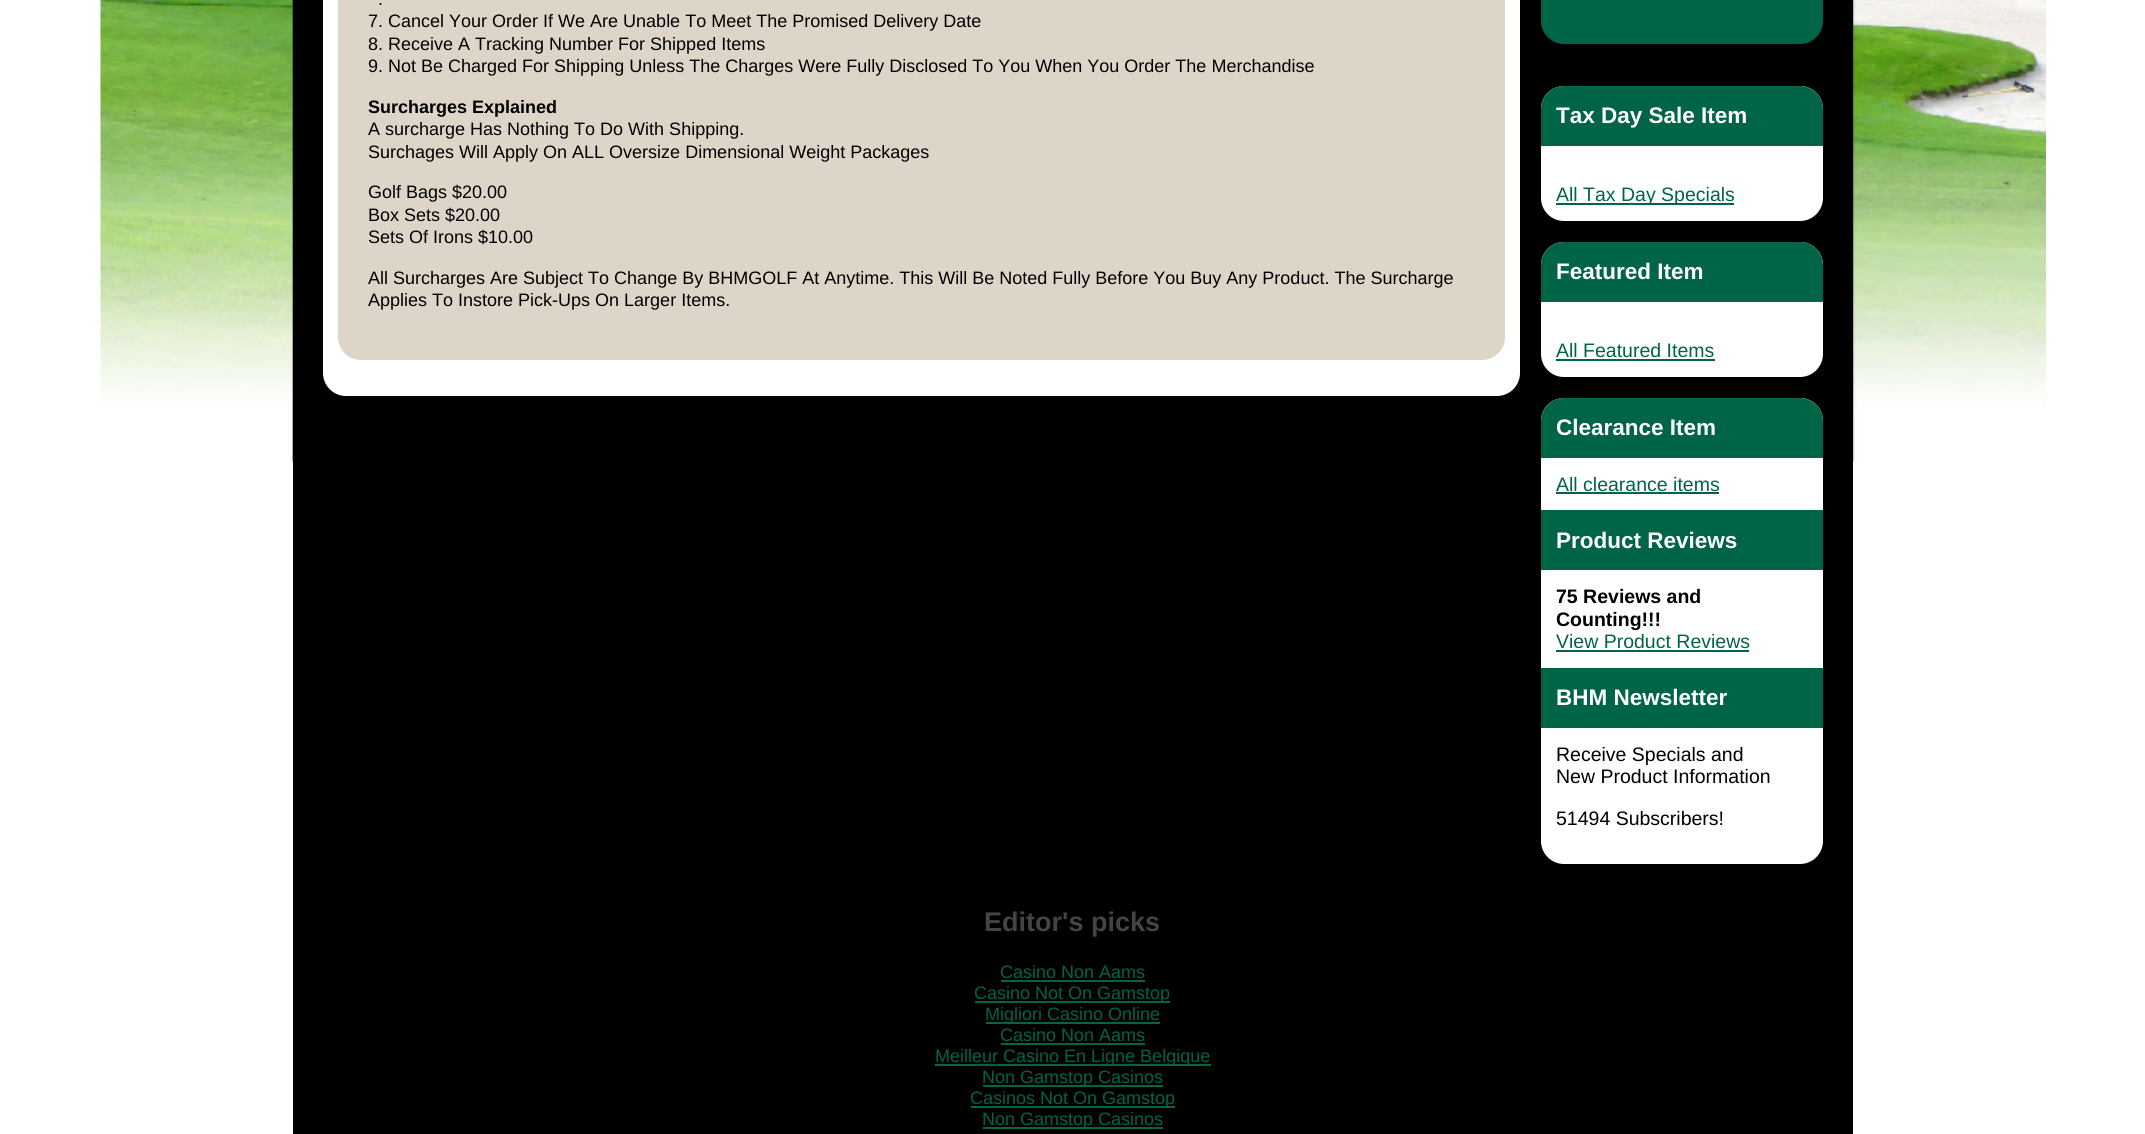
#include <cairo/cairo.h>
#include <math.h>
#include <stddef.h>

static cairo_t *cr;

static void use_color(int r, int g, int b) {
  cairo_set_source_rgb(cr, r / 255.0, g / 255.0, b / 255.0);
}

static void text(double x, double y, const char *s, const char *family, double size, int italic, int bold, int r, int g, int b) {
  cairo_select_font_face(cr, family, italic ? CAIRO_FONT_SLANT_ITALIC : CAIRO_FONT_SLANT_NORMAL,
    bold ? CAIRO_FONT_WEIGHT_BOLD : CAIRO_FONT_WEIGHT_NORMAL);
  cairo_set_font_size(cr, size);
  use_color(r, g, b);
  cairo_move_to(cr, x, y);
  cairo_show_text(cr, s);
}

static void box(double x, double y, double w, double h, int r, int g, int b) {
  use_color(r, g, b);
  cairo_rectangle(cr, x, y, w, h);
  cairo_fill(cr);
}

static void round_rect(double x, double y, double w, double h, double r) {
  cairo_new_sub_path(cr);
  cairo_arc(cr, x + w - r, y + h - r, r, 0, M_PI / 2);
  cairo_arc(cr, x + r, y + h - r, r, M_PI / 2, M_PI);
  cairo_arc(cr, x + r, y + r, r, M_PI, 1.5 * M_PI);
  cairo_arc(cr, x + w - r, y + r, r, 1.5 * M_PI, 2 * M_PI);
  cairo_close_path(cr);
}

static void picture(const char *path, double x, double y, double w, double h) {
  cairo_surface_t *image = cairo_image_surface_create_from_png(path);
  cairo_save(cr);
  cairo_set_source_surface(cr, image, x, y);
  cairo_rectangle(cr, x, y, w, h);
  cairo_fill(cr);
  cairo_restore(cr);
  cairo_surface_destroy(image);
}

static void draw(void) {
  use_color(255, 255, 255);
  cairo_paint(cr);
  picture("img_01.png", 100, 0, 1946, 462);
  box(293, 0, 1560, 1134, 0, 0, 0);
  use_color(255, 255, 255);
  round_rect(323, -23, 1197, 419, 23);
  cairo_fill(cr);
  use_color(222, 213, 201);
  round_rect(338, -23, 1167, 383, 23);
  cairo_fill(cr);
  use_color(0, 100, 70);
  round_rect(1541, -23, 282, 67, 23);
  cairo_fill(cr);
  use_color(255, 255, 255);
  round_rect(1541, 86, 282, 135, 23);
  cairo_fill(cr);
  use_color(0, 100, 70);
  cairo_new_path(cr);
  cairo_move_to(cr, 1564, 86);
  cairo_line_to(cr, 1800, 86);
  cairo_curve_to(cr, 1812.5, 86, 1823, 96.5, 1823, 109);
  cairo_line_to(cr, 1823, 146);
  cairo_line_to(cr, 1541, 146);
  cairo_line_to(cr, 1541, 109);
  cairo_curve_to(cr, 1541, 96.5, 1551.5, 86, 1564, 86);
  cairo_close_path(cr);
  cairo_fill(cr);
  box(1556, 203, 178, 2, 0, 100, 70);
  use_color(255, 255, 255);
  round_rect(1541, 242, 282, 135, 23);
  cairo_fill(cr);
  use_color(0, 100, 70);
  cairo_new_path(cr);
  cairo_move_to(cr, 1564, 242);
  cairo_line_to(cr, 1800, 242);
  cairo_curve_to(cr, 1812.5, 242, 1823, 252.5, 1823, 265);
  cairo_line_to(cr, 1823, 302);
  cairo_line_to(cr, 1541, 302);
  cairo_line_to(cr, 1541, 265);
  cairo_curve_to(cr, 1541, 252.5, 1551.5, 242, 1564, 242);
  cairo_close_path(cr);
  cairo_fill(cr);
  box(1556, 359, 159, 2, 0, 100, 70);
  use_color(255, 255, 255);
  round_rect(1541, 398, 282, 466, 23);
  cairo_fill(cr);
  use_color(0, 100, 70);
  cairo_new_path(cr);
  cairo_move_to(cr, 1564, 398);
  cairo_line_to(cr, 1800, 398);
  cairo_curve_to(cr, 1812.5, 398, 1823, 408.5, 1823, 421);
  cairo_line_to(cr, 1823, 458);
  cairo_line_to(cr, 1541, 458);
  cairo_line_to(cr, 1541, 421);
  cairo_curve_to(cr, 1541, 408.5, 1551.5, 398, 1564, 398);
  cairo_close_path(cr);
  cairo_fill(cr);
  box(1556, 492, 163, 2, 0, 100, 70);
  box(1541, 510, 282, 60, 0, 100, 70);
  box(1556, 650, 193, 2, 0, 100, 70);
  box(1541, 668, 282, 60, 0, 100, 70);
  box(1001, 980, 144, 2, 0, 100, 70);
  box(975, 1001, 195, 2, 0, 100, 70);
  box(986, 1022, 174, 2, 0, 100, 70);
  box(1001, 1043, 144, 2, 0, 100, 70);
  box(935, 1064, 276, 2, 0, 100, 70);
  box(983, 1085, 180, 2, 0, 100, 70);
  box(971, 1106, 204, 2, 0, 100, 70);
  box(983, 1127, 180, 2, 0, 100, 70);
  text(378, 5, ".", "Liberation Sans", 18, 0, 0, 0, 0, 0);
  text(368, 27, "7. Cancel Your Order If We Are Unable To Meet The Promised Delivery Date", "Liberation Sans", 18, 0, 0, 0, 0, 0);
  text(368, 50, "8. Receive A Tracking Number For Shipped Items", "Liberation Sans", 18, 0, 0, 0, 0, 0);
  text(368, 72, "9. Not Be Charged For Shipping Unless The Charges Were Fully Disclosed To You When You Order The Merchandise", "Liberation Sans", 18, 0, 0, 0, 0, 0);
  text(368, 113, "Surcharges Explained", "Liberation Sans", 18, 0, 1, 0, 0, 0);
  text(368, 135, "A surcharge Has Nothing To Do With Shipping.", "Liberation Sans", 18, 0, 0, 0, 0, 0);
  text(368, 158, "Surchages Will Apply On ALL Oversize Dimensional Weight Packages", "Liberation Sans", 18, 0, 0, 0, 0, 0);
  text(368, 198, "Golf Bags $20.00", "Liberation Sans", 18, 0, 0, 0, 0, 0);
  text(368, 221, "Box Sets $20.00", "Liberation Sans", 18, 0, 0, 0, 0, 0);
  text(368, 243, "Sets Of Irons $10.00", "Liberation Sans", 18, 0, 0, 0, 0, 0);
  text(368, 284, "All Surcharges Are Subject To Change By BHMGOLF At Anytime. This Will Be Noted Fully Before You Buy Any Product. The Surcharge", "Liberation Sans", 18, 0, 0, 0, 0, 0);
  text(368, 306, "Applies To Instore Pick-Ups On Larger Items.", "Liberation Sans", 18, 0, 0, 0, 0, 0);
  text(1556, 123, "Tax Day Sale Item", "Liberation Sans", 22.5, 0, 1, 255, 255, 255);
  text(1556, 201, "All Tax Day Specials", "Liberation Sans", 19.5, 0, 0, 0, 100, 70);
  text(1556, 279, "Featured Item", "Liberation Sans", 22.5, 0, 1, 255, 255, 255);
  text(1556, 357, "All Featured Items", "Liberation Sans", 19.5, 0, 0, 0, 100, 70);
  text(1556, 435, "Clearance Item", "Liberation Sans", 22.5, 0, 1, 255, 255, 255);
  text(1556, 491, "All clearance items", "Liberation Sans", 19.5, 0, 0, 0, 100, 70);
  text(1556, 548, "Product Reviews", "Liberation Sans", 22.5, 0, 1, 255, 255, 255);
  text(1556, 603, "75 Reviews and", "Liberation Sans", 19.5, 0, 1, 0, 0, 0);
  text(1556, 626, "Counting!!!", "Liberation Sans", 19.5, 0, 1, 0, 0, 0);
  text(1556, 648, "View Product Reviews", "Liberation Sans", 19.5, 0, 0, 0, 100, 70);
  text(1556, 705, "BHM Newsletter", "Liberation Sans", 22.5, 0, 1, 255, 255, 255);
  text(1556, 761, "Receive Specials and", "Liberation Sans", 19.5, 0, 0, 0, 0, 0);
  text(1556, 783, "New Product Information", "Liberation Sans", 19.5, 0, 0, 0, 0, 0);
  text(1556, 825, "51494 Subscribers!", "Liberation Sans", 19.5, 0, 0, 0, 0, 0);
  text(984, 931, "Editor's picks", "Liberation Sans", 27, 0, 1, 68, 68, 68);
  text(1000, 978, "Casino Non Aams", "Liberation Sans", 18, 0, 0, 0, 100, 70);
  text(974, 999, "Casino Not On Gamstop", "Liberation Sans", 18, 0, 0, 0, 100, 70);
  text(985, 1020, "Migliori Casino Online", "Liberation Sans", 18, 0, 0, 0, 100, 70);
  text(1000, 1041, "Casino Non Aams", "Liberation Sans", 18, 0, 0, 0, 100, 70);
  text(935, 1062, "Meilleur Casino En Ligne Belgique", "Liberation Sans", 18, 0, 0, 0, 100, 70);
  text(982, 1083, "Non Gamstop Casinos", "Liberation Sans", 18, 0, 0, 0, 100, 70);
  text(970, 1104, "Casinos Not On Gamstop", "Liberation Sans", 18, 0, 0, 0, 100, 70);
  text(982, 1125, "Non Gamstop Casinos", "Liberation Sans", 18, 0, 0, 0, 100, 70);
}

int main(void) {
  cairo_surface_t *surface = cairo_image_surface_create(CAIRO_FORMAT_RGB24, 2145, 1134);
  cr = cairo_create(surface);
  cairo_font_options_t *options = cairo_font_options_create();
  cairo_font_options_set_hint_metrics(options, CAIRO_HINT_METRICS_OFF);
  cairo_font_options_set_hint_style(options, CAIRO_HINT_STYLE_NONE);
  cairo_set_font_options(cr, options);
  cairo_set_miter_limit(cr, 4);
  draw();
  cairo_surface_write_to_png(surface, "out.png");
  cairo_font_options_destroy(options);
  cairo_destroy(cr);
  cairo_surface_destroy(surface);
  return 0;
}
